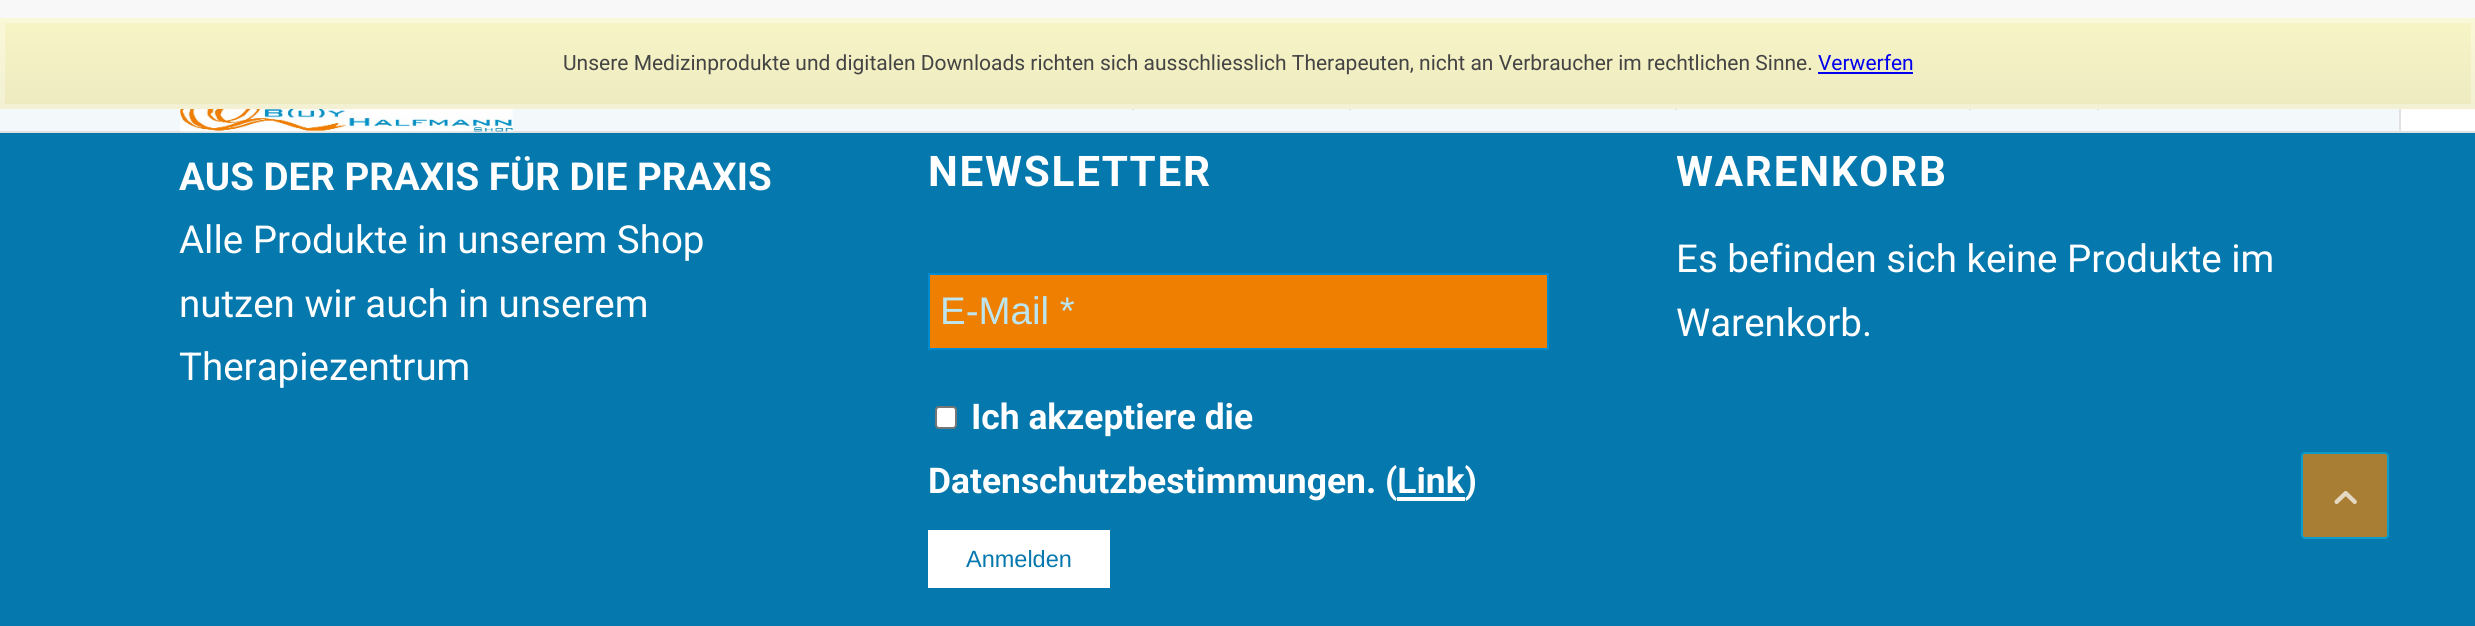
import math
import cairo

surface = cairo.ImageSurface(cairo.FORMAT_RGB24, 2475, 626)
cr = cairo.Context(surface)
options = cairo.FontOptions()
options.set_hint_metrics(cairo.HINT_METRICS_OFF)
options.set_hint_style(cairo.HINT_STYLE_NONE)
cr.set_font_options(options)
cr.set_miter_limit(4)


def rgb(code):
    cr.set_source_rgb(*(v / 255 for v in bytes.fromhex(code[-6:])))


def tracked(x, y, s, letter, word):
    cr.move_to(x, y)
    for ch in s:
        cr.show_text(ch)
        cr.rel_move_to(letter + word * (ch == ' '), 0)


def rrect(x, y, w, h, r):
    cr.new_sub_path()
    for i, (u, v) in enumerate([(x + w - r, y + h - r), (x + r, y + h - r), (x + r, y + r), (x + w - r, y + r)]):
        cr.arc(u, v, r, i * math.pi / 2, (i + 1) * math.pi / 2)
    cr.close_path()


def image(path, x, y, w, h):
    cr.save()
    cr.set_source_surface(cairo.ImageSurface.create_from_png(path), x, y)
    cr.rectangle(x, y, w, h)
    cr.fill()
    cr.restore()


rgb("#0578ad")
cr.paint()
rgb("#e1e1e1")
cr.rectangle(0, 131, 2403, 2)
cr.fill()
rgb("#f3f8fb")
cr.rectangle(0, 109, 2400, 22)
cr.fill()
rrect(2400, 54, 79, 78, 3)
rgb("#e1e1e1")
cr.stroke()
gradient = cairo.LinearGradient(1238, 17, 1238, 109)
gradient.add_color_stop_rgba(0, 0.969, 0.961, 0.776, 1)
gradient.add_color_stop_rgba(1, 0.933, 0.918, 0.757, 1)
cr.set_source(gradient)
cr.rectangle(0, 18, 2475, 91)
cr.fill()
cr.rectangle(2.5, 20.5, 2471, 86)
cr.set_source_rgba(1, 1, 1, 0.3)
cr.set_line_width(5)
cr.stroke()
rgb("#0000ee")
cr.rectangle(1818, 72, 95, 2)
cr.fill()
rgb("#f8f8f8")
cr.rectangle(0, 0, 2475, 18)
cr.fill()
image("img/1.png", 180, 109, 333, 23)
for x, y, w, h, color in [
    (1132, 109, 2, 1, "#e1e1e1"),
    (1349, 109, 2, 1, "#e1e1e1"),
    (1675, 109, 2, 1, "#e1e1e1"),
    (1969, 109, 2, 1, "#e1e1e1"),
    (2097, 109, 2, 1, "#e1e1e1"),
    (2401, 109, 74, 22, "#ffffff"),
]:
    rgb(color)
    cr.rectangle(x, y, w, h)
    cr.fill()
rgb("#ee7f00")
cr.rectangle(929, 274, 619, 75)
cr.fill_preserve()
rgb("#008bd0")
cr.set_line_width(2)
cr.stroke()
rgb("#ffffff")
rrect(936, 407, 20, 21, 3)
cr.fill_preserve()
rgb("#767676")
cr.stroke()
rgb("#ffffff")
cr.rectangle(1397, 497, 68, 4)
cr.fill()
cr.rectangle(928, 530, 182, 58)
cr.fill()
rgb("#a87d34")
rrect(2302, 453, 86, 85, 3)
cr.fill_preserve()
rgb("#0d9cca")
cr.stroke()
image("img/2.png", 2334, 491, 23, 14)
cr.select_font_face("Roboto")
cr.set_font_size(21)
rgb("#444444")
cr.move_to(563, 70)
cr.show_text("Unsere Medizinprodukte und digitalen Downloads richten sich ausschliesslich Therapeuten, nicht an Verbraucher im rechtlichen Sinne.")
rgb("#0000ee")
cr.move_to(1818, 70)
cr.show_text("Verwerfen")
cr.select_font_face("Roboto", cairo.FONT_SLANT_NORMAL, cairo.FONT_WEIGHT_BOLD)
cr.set_font_size(38.5)
rgb("#ffffff")
cr.move_to(179, 190)
cr.show_text("AUS DER PRAXIS FÜR DIE PRAXIS")
cr.select_font_face("Roboto")
for x, y, s in [
    (179, 253, "Alle Produkte in unserem Shop"),
    (179, 317, "nutzen wir auch in unserem"),
    (179, 380, "Therapiezentrum"),
]:
    cr.move_to(x, y)
    cr.show_text(s)
cr.select_font_face("Roboto", cairo.FONT_SLANT_NORMAL, cairo.FONT_WEIGHT_BOLD)
cr.set_font_size(42.25)
tracked(928, 186, "NEWSLETTER", 1.75, 0)
cr.select_font_face("Liberation Sans")
cr.set_font_size(38.5)
rgb("#bde5f0")
cr.move_to(940, 324)
cr.show_text("E-Mail *")
cr.select_font_face("Roboto", cairo.FONT_SLANT_NORMAL, cairo.FONT_WEIGHT_BOLD)
cr.set_font_size(35.4)
rgb("#ffffff")
cr.move_to(971, 429)
cr.show_text("Ich akzeptiere die")
cr.move_to(928, 493)
cr.show_text("Datenschutzbestimmungen. (Link)")
cr.select_font_face("Liberation Sans")
cr.set_font_size(23.5)
rgb("#0578ad")
cr.move_to(966, 567)
cr.show_text("Anmelden")
cr.save()
cr.rectangle(1677, 114, 619, 275)
cr.clip()
cr.select_font_face("Roboto", cairo.FONT_SLANT_NORMAL, cairo.FONT_WEIGHT_BOLD)
cr.set_font_size(42.25)
rgb("#ffffff")
tracked(1676, 186, "WARENKORB", 1.75, 0)
cr.restore()
cr.select_font_face("Roboto")
cr.set_font_size(38.5)
rgb("#ffffff")
cr.move_to(1676, 272)
cr.show_text("Es befinden sich keine Produkte im")
cr.move_to(1676, 336)
cr.show_text("Warenkorb.")
surface.write_to_png("page.png")
